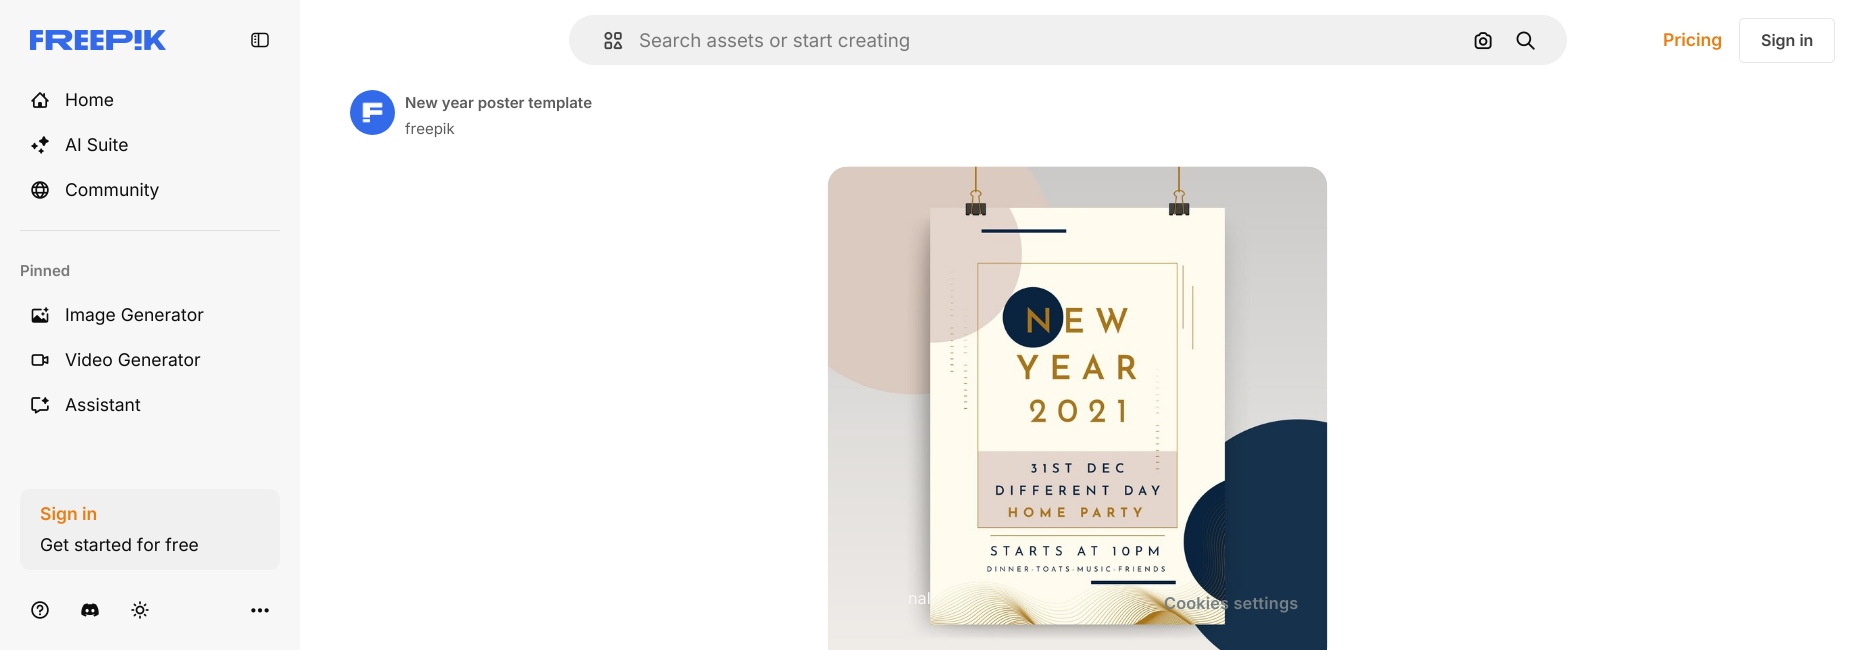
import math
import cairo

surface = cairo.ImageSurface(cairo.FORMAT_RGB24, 1854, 650)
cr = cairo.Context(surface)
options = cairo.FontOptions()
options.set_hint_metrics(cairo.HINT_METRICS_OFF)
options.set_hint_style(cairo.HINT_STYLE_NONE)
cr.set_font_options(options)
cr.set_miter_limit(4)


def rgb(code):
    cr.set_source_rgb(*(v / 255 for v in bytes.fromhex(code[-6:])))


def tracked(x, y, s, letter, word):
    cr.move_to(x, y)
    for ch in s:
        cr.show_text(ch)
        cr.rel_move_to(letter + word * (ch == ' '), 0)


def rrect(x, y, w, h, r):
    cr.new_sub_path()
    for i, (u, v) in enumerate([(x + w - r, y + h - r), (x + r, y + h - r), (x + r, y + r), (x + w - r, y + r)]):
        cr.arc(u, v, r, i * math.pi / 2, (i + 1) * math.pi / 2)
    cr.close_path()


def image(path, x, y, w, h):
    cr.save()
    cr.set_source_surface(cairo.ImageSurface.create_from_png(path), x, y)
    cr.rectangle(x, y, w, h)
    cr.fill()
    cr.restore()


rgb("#ffffff")
cr.paint()
rgb("#f7f7f7")
cr.rectangle(0, 0, 300, 650)
cr.fill()
image("img/1.png", 30, 30, 136, 20)
image("img/2.png", 251, 32, 18, 16)
image("img/3.png", 31, 92, 18, 16)
image("img/4.png", 31, 136, 18, 18)
image("img/5.png", 31, 181, 18, 18)
rgb("#e0e0e0")
cr.rectangle(20, 230, 260, 1)
cr.fill()
image("img/6.png", 31, 307, 18, 16)
image("img/7.png", 31, 354, 18, 12)
image("img/8.png", 31, 397, 18, 17)
rgb("#f0f0f0")
rrect(20, 489, 260, 81, 10)
cr.fill()
image("img/9.png", 31, 601, 18, 18)
image("img/10.png", 81, 603, 18, 14)
image("img/11.png", 131, 601, 18, 18)
image("img/12.png", 251, 608, 18, 5)
rrect(568.5, 14.5, 999, 51, 25.5)
cr.fill_preserve()
rgb("#ffffff")
cr.set_line_width(1)
cr.stroke()
image("img/13.png", 604, 31, 19, 19)
image("img/14.png", 1474, 32, 18, 18)
image("img/15.png", 1516, 31, 19, 19)
rrect(1739.5, 18.5, 95, 44, 4.5)
rgb("#e7e7e7")
cr.stroke()
image("img/16.png", 350, 90, 45, 45)
image("img/17.png", 827, 166, 501, 484)
cr.select_font_face("Inter")
cr.set_font_size(17.5)
rgb("#0d0d0d")
for x, y, s in [
    (65, 106, "Home"),
    (65, 151, "AI Suite"),
    (65, 196, "Community"),
]:
    cr.move_to(x, y)
    cr.show_text(s)
cr.select_font_face("Inter SemiBold")
cr.set_font_size(15)
rgb("#787878")
cr.move_to(20, 276)
cr.show_text("Pinned")
cr.select_font_face("Inter")
cr.set_font_size(17.5)
rgb("#0d0d0d")
for x, y, s in [
    (65, 321, "Image Generator"),
    (65, 366, "Video Generator"),
    (65, 411, "Assistant"),
]:
    cr.move_to(x, y)
    cr.show_text(s)
cr.select_font_face("Inter SemiBold")
rgb("#ea7e11")
cr.move_to(40, 520)
cr.show_text("Sign in")
cr.select_font_face("Inter")
rgb("#0d0d0d")
cr.move_to(40, 551)
cr.show_text("Get started for free")
cr.set_font_size(18.75)
rgb("#787878")
cr.move_to(639, 47)
cr.show_text("Search assets or start creating")
cr.select_font_face("Inter SemiBold")
cr.set_font_size(17.5)
rgb("#ea7e11")
cr.move_to(1663, 46)
cr.show_text("Pricing")
cr.set_font_size(16)
rgb("#424242")
cr.move_to(1761, 46)
cr.show_text("Sign in")
cr.set_font_size(15)
rgb("#5c5c5c")
cr.move_to(405, 108)
cr.show_text("New year poster template")
cr.select_font_face("Inter")
cr.move_to(405, 134)
cr.show_text("freepik")
cr.set_font_size(16.25)
rgb("#f9f8f7")
cr.move_to(908, 604)
cr.show_text("nal")
cr.select_font_face("Inter SemiBold")
rgb("#758184")
tracked(1164, 609, "Cookies settings", 0.2, 0)
surface.write_to_png("page.png")
